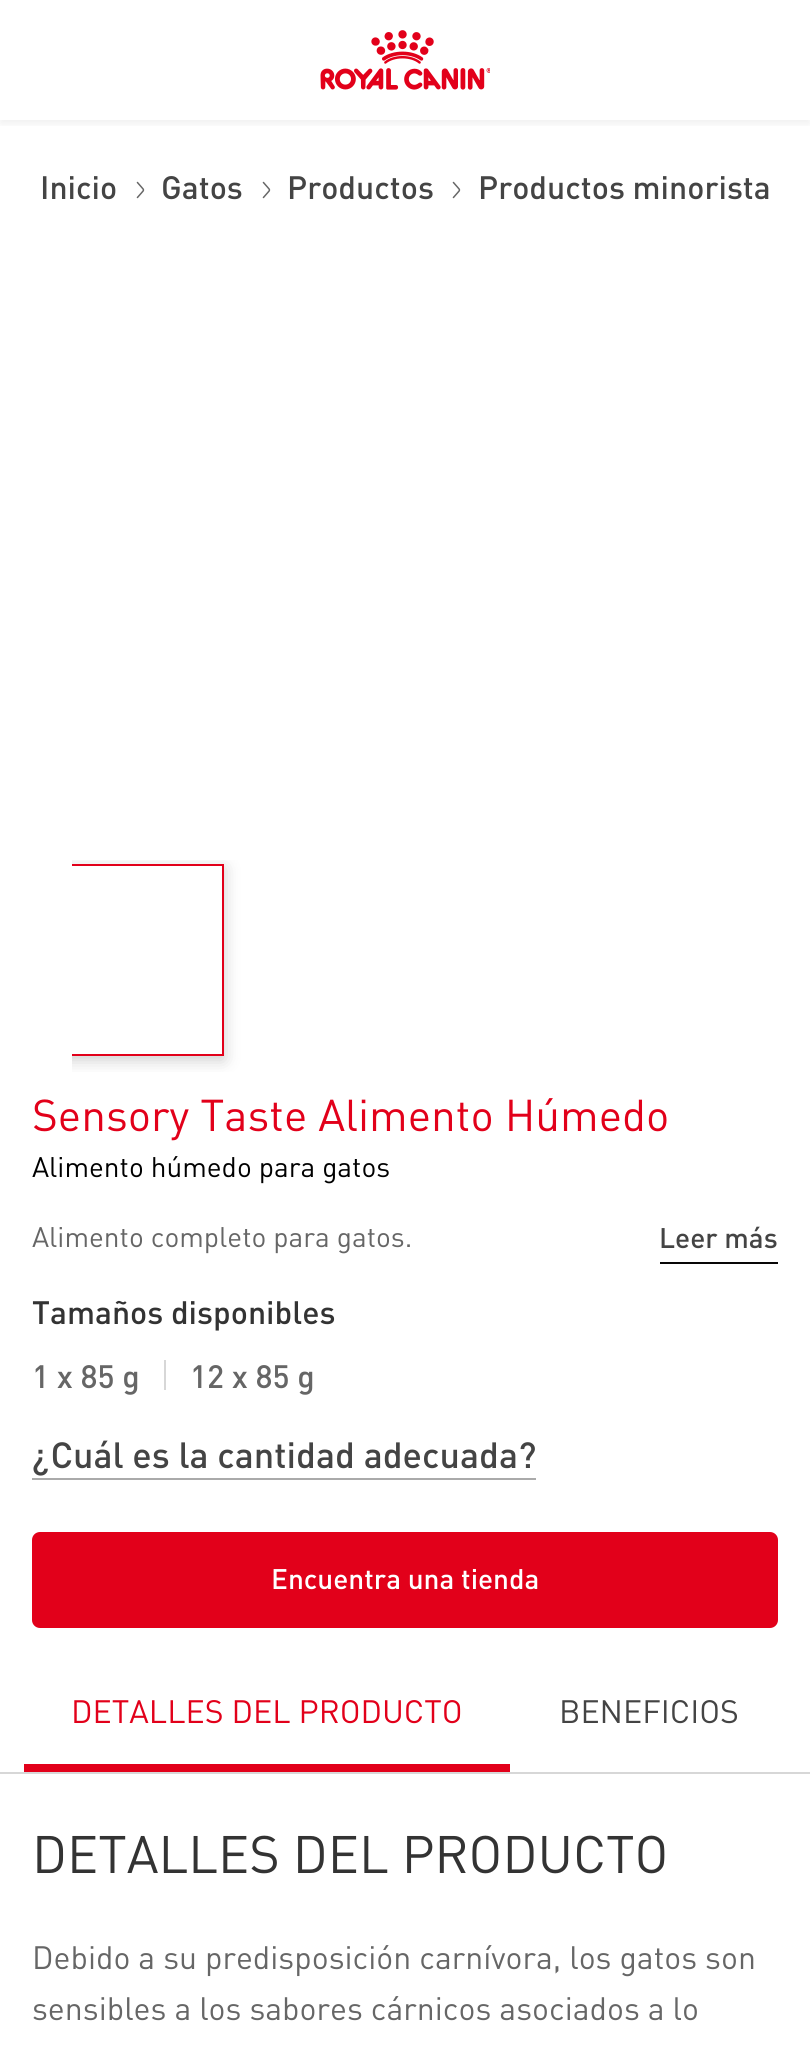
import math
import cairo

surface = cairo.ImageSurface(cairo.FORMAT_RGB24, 810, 2057)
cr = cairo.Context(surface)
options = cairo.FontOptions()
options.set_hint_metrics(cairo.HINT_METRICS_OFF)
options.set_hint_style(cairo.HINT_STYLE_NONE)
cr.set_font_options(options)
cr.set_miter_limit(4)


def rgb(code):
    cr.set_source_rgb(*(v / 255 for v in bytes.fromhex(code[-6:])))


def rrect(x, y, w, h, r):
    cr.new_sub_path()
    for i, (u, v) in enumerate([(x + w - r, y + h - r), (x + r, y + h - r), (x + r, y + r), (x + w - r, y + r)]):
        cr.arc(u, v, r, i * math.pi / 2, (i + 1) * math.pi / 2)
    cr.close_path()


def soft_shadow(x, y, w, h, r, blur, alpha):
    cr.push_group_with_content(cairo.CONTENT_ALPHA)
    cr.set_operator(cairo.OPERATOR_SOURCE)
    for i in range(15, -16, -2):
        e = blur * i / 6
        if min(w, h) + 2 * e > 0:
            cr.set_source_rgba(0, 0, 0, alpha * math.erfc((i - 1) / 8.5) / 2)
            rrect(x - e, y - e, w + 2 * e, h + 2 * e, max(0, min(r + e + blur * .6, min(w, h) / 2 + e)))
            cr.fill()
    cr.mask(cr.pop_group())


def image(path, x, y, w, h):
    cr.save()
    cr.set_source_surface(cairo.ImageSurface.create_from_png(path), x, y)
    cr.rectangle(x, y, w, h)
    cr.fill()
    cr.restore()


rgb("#ffffff")
cr.paint()
cr.save()
cr.rectangle(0, 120, 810, 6)
cr.clip()
rgb("#000000")
soft_shadow(0, 4, 810, 120, 0, 4, 0.06)
cr.restore()
image("img/1.png", 320, 30, 170, 60)
image("img/2.png", 136, 181, 9, 18)
image("img/2.png", 262, 181, 9, 18)
image("img/2.png", 452, 181, 9, 18)
cr.save()
cr.rectangle(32, 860, 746, 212)
cr.clip()
cr.set_fill_rule(cairo.FILL_RULE_EVEN_ODD)
cr.new_path()
cr.move_to(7, 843)
cr.line_to(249, 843)
cr.line_to(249, 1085)
cr.line_to(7, 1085)
cr.close_path()
cr.move_to(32, 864)
cr.line_to(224, 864)
cr.line_to(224, 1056)
cr.line_to(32, 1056)
cr.close_path()
cr.clip()
rgb("#000000")
soft_shadow(32, 868, 192, 192, 0, 8, 0.2)
cr.restore()
cr.rectangle(33, 865, 190, 190)
rgb("#e2001a")
cr.stroke()
for x, y, w, h, color in [
    (32, 860, 40, 212, "#ffffff"),
    (660, 1262, 118, 2, "#080707"),
    (164, 1360, 2, 30, "#d7d7d7"),
    (32, 1478, 504, 2, "#aaaaaa"),
]:
    rgb(color)
    cr.rectangle(x, y, w, h)
    cr.fill()
rgb("#e2001a")
rrect(32, 1532, 746, 96, 8)
cr.fill()
rgb("#d7d7d7")
cr.rectangle(0, 1772, 810, 2)
cr.fill()
rgb("#e2001a")
cr.rectangle(24, 1764, 486, 8)
cr.fill()
cr.select_font_face("DIN Medium")
cr.set_font_size(32)
rgb("#444444")
for x, y, s in [
    (40, 199, "Inicio"),
    (161, 199, "Gatos"),
    (287, 199, "Productos"),
    (478, 199, "Productos minorista"),
]:
    cr.move_to(x, y)
    cr.show_text(s)
cr.select_font_face("DIN")
cr.set_font_size(44)
rgb("#e2001a")
cr.move_to(32, 1131)
cr.show_text("Sensory Taste Alimento Húmedo")
cr.set_font_size(28)
rgb("#000000")
cr.move_to(32, 1177)
cr.show_text("Alimento húmedo para gatos")
rgb("#666666")
cr.move_to(32, 1247)
cr.show_text("Alimento completo para gatos.")
cr.select_font_face("DIN Medium")
rgb("#444444")
cr.move_to(659, 1248)
cr.show_text("Leer más")
cr.set_font_size(32)
rgb("#333333")
cr.move_to(32, 1324)
cr.show_text("Tamaños disponibles")
rgb("#666666")
cr.move_to(32, 1388)
cr.show_text("1 x 85 g")
cr.move_to(190, 1388)
cr.show_text("12 x 85 g")
cr.set_font_size(36)
rgb("#444444")
cr.move_to(32, 1468)
cr.show_text("¿Cuál es la cantidad adecuada?")
cr.set_font_size(28)
rgb("#ffffff")
cr.move_to(271, 1589)
cr.show_text("Encuentra una tienda")
cr.select_font_face("DIN")
cr.set_font_size(32)
rgb("#e2001a")
cr.move_to(71, 1723)
cr.show_text("DETALLES DEL PRODUCTO")
rgb("#444444")
cr.move_to(559, 1723)
cr.show_text("BENEFICIOS")
cr.set_font_size(52)
rgb("#333333")
cr.move_to(32, 1873)
cr.show_text("DETALLES DEL PRODUCTO")
cr.set_font_size(32)
rgb("#666666")
cr.move_to(32, 1969)
cr.show_text("Debido a su predisposición carnívora, los gatos son")
cr.move_to(32, 2020)
cr.show_text("sensibles a los sabores cárnicos asociados a lo")
surface.write_to_png("page.png")
